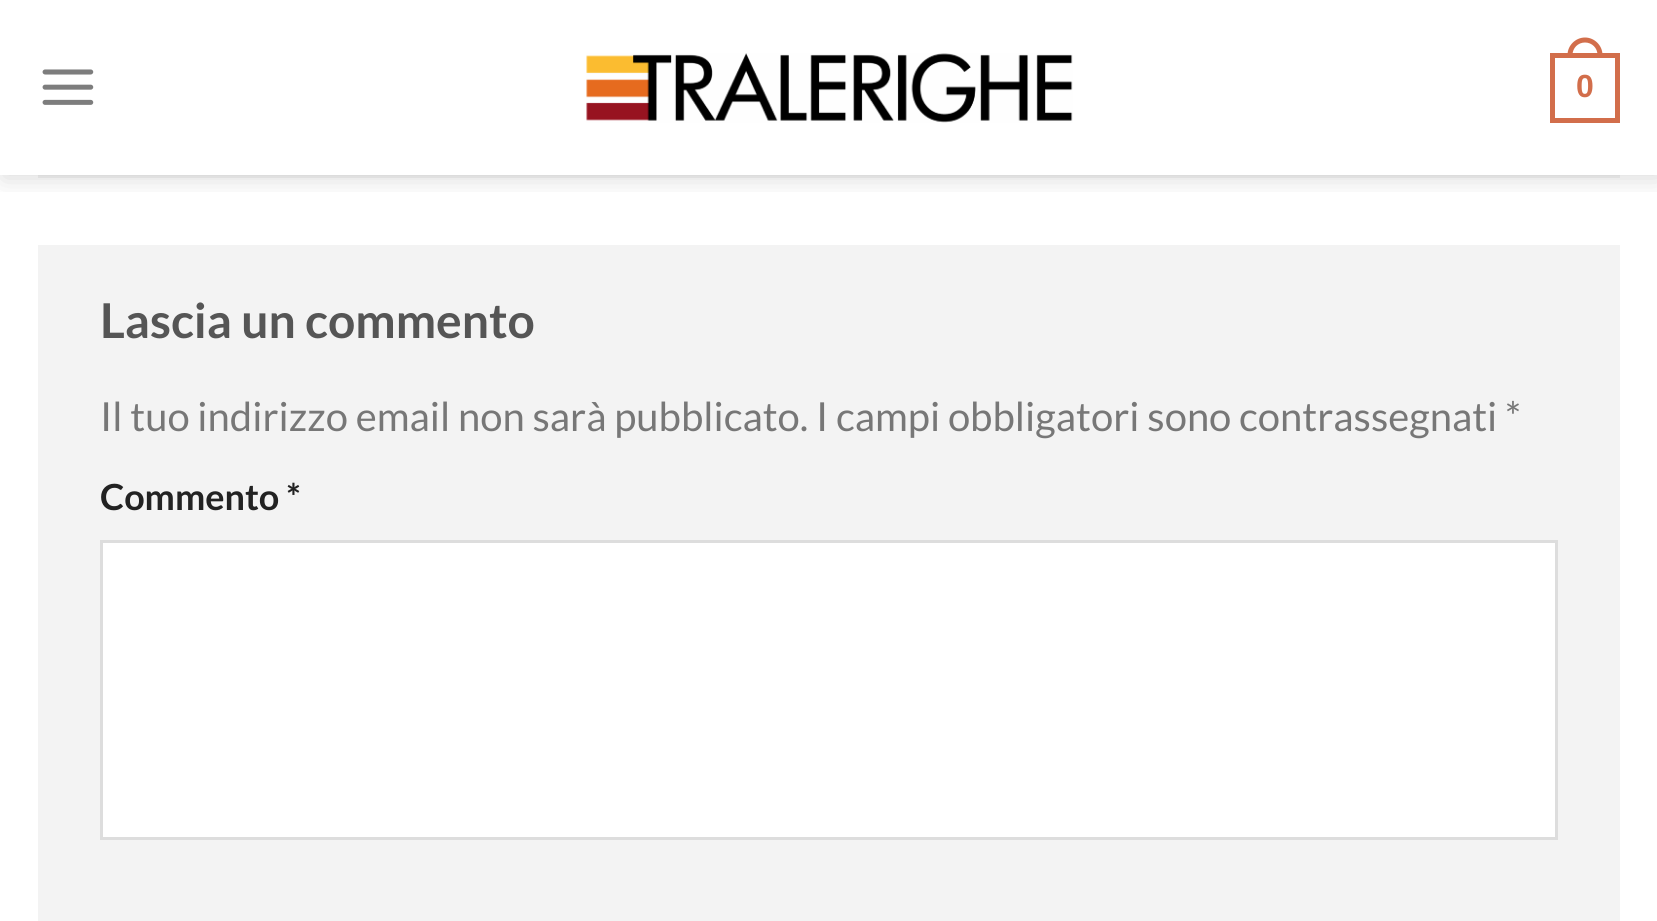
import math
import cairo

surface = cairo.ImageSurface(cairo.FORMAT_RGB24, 1657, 921)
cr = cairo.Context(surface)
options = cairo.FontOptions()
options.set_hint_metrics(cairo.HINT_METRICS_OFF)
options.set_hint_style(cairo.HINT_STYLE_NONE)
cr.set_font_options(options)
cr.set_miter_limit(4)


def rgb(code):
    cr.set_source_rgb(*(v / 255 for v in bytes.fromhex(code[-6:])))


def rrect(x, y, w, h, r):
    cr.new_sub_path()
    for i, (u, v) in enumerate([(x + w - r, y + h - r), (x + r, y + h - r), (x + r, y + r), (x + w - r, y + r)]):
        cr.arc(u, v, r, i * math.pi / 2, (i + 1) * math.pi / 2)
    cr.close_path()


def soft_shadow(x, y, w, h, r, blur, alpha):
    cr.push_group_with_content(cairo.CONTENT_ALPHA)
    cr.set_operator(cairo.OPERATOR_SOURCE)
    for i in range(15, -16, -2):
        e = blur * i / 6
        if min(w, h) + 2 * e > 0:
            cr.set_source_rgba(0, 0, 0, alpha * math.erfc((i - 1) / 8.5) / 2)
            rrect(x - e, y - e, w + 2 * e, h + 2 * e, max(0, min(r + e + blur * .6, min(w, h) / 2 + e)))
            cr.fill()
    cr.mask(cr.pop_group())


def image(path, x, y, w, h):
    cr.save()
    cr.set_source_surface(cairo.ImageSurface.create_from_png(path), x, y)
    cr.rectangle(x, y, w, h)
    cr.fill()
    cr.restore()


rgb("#ffffff")
cr.paint()
cr.save()
cr.rectangle(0, 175, 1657, 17)
cr.clip()
rgb("#000000")
soft_shadow(3, 3, 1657, 175, 0, 12.5, 0.15)
cr.restore()
image("img/1.png", 42, 69, 52, 36)
image("img/2.png", 586, 53, 487, 70)
cr.rectangle(1552.5, 55.5, 65, 65)
rgb("#d26e4b")
cr.set_line_width(5)
cr.stroke()
cr.set_fill_rule(cairo.FILL_RULE_EVEN_ODD)
cr.new_path()
cr.move_to(1585, 37.5)
cr.curve_to(1594.5, 37.5, 1602.5, 45.5, 1602.5, 55)
cr.line_to(1602.5, 57.5)
cr.line_to(1567.5, 57.5)
cr.line_to(1567.5, 55)
cr.curve_to(1567.5, 45.5, 1575.5, 37.5, 1585, 37.5)
cr.close_path()
cr.move_to(1585, 42.5)
cr.curve_to(1592, 42.5, 1597.5, 48, 1597.5, 55)
cr.line_to(1597.5, 57.5)
cr.line_to(1572.5, 57.5)
cr.line_to(1572.5, 55)
cr.curve_to(1572.5, 48, 1578, 42.5, 1585, 42.5)
cr.close_path()
cr.fill()
cr.set_source_rgba(0.467, 0.467, 0.467, 0.1)
cr.rectangle(38, 175, 1582, 3)
cr.fill()
rgb("#f3f3f3")
cr.rectangle(38, 245, 1582, 676)
cr.fill()
rgb("#ffffff")
cr.rectangle(101.5, 541.5, 1455, 297)
cr.fill_preserve()
rgb("#dddddd")
cr.set_line_width(3)
cr.stroke()
cr.select_font_face("Liberation Sans", cairo.FONT_SLANT_NORMAL, cairo.FONT_WEIGHT_BOLD)
cr.set_font_size(32)
rgb("#d26e4b")
cr.move_to(1576, 97)
cr.show_text("0")
cr.select_font_face("Lato", cairo.FONT_SLANT_NORMAL, cairo.FONT_WEIGHT_BOLD)
cr.set_font_size(48)
rgb("#555555")
cr.move_to(100, 338)
cr.show_text("Lascia un commento")
cr.select_font_face("Lato")
cr.set_font_size(40)
rgb("#777777")
cr.move_to(100, 431)
cr.show_text("Il tuo indirizzo email non sarà pubblicato. I campi obbligatori sono contrassegnati *")
cr.select_font_face("Lato", cairo.FONT_SLANT_NORMAL, cairo.FONT_WEIGHT_BOLD)
cr.set_font_size(36)
rgb("#222222")
cr.move_to(100, 510)
cr.show_text("Commento *")
surface.write_to_png("page.png")
